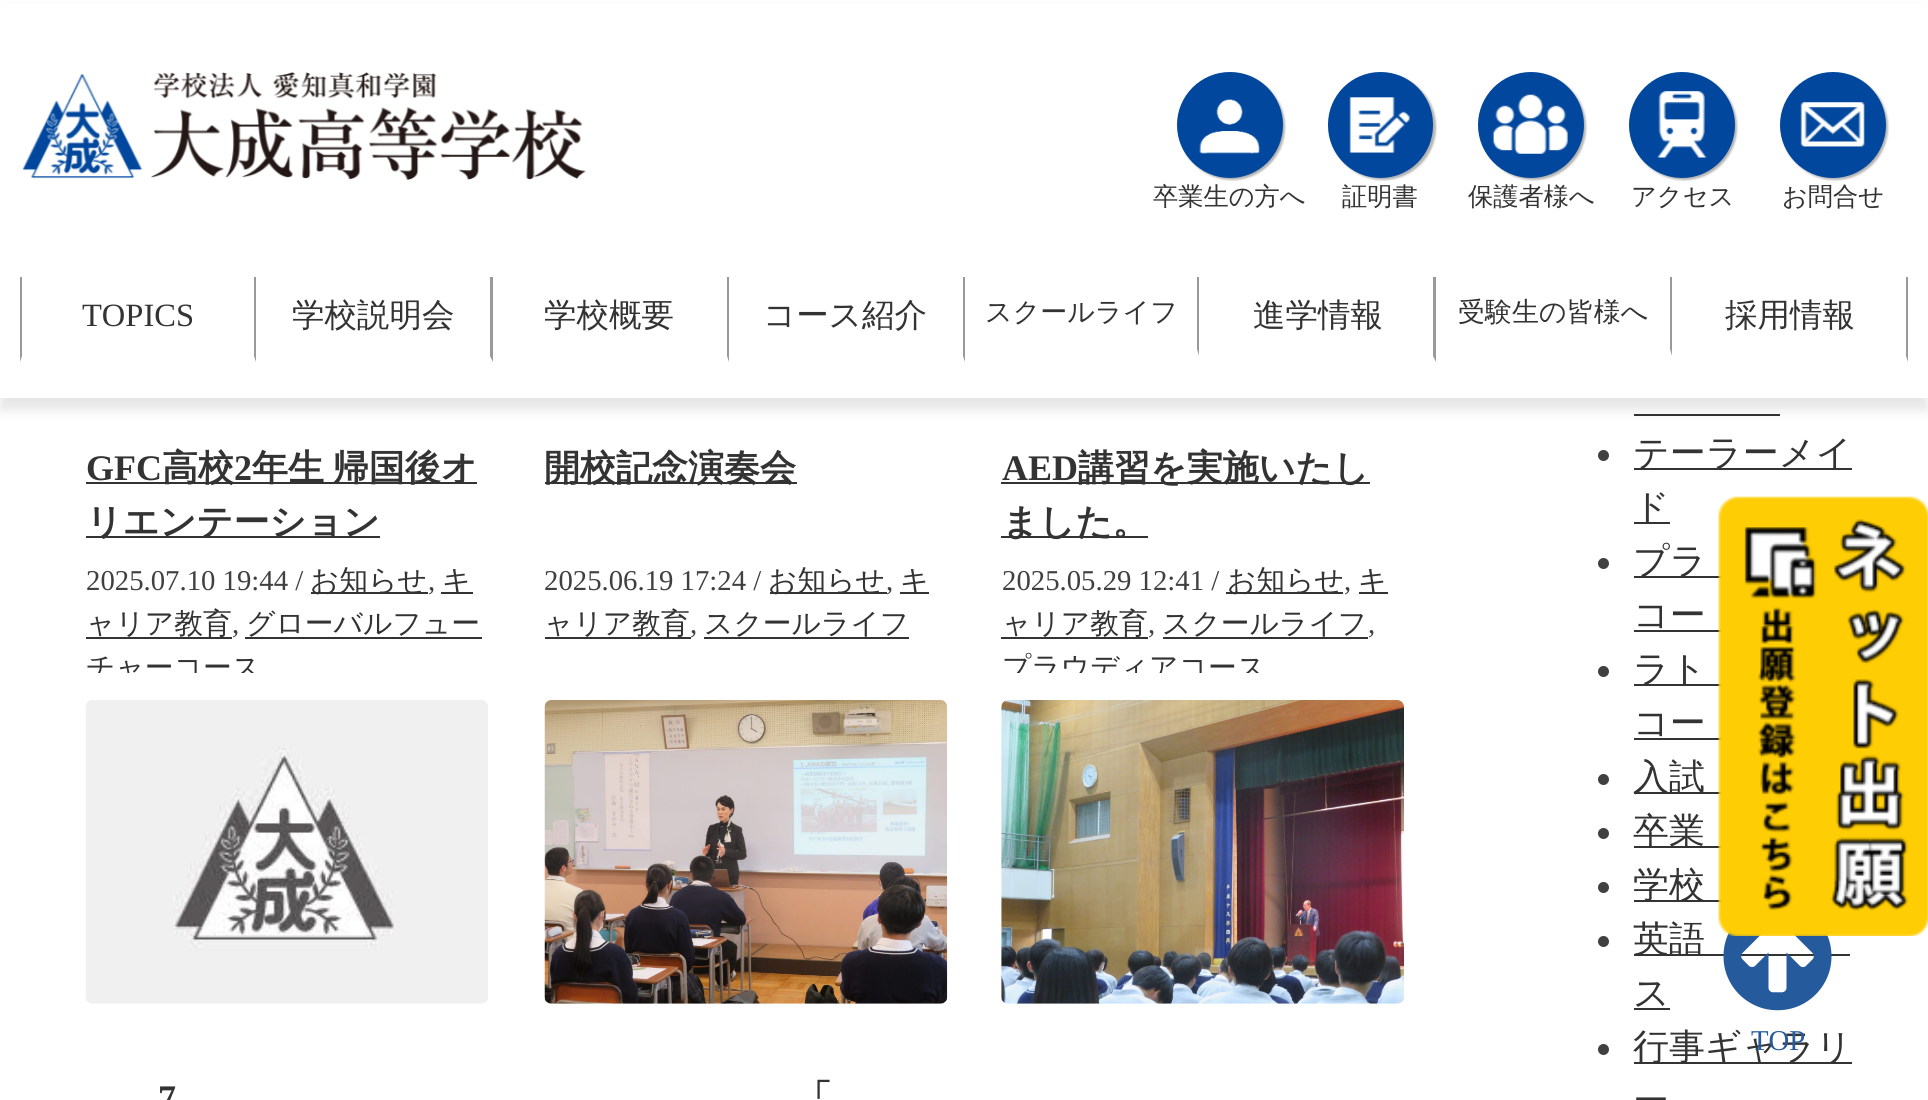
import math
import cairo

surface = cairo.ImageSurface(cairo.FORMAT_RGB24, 1928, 1100)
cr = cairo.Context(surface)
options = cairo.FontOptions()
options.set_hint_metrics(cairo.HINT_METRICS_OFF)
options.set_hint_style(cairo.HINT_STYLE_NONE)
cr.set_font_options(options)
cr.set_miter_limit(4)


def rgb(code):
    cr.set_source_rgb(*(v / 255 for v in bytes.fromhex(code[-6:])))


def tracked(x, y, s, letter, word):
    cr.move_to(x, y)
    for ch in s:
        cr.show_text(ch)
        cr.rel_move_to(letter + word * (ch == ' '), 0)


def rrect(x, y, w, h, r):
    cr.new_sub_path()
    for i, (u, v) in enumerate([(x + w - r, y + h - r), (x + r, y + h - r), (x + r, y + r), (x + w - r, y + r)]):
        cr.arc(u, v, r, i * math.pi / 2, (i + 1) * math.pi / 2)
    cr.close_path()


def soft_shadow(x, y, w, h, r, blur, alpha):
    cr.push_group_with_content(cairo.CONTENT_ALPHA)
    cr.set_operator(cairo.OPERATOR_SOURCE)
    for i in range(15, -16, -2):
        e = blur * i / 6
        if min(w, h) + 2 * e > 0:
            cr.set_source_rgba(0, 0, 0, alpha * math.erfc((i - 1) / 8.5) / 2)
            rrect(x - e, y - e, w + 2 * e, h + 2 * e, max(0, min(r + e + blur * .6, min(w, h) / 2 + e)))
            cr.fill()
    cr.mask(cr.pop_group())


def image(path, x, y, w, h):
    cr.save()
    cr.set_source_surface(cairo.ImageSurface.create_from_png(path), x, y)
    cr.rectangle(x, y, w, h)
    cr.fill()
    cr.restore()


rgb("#ffffff")
cr.paint()
rgb("#333333")
cr.rectangle(1634, 414, 146, 2)
cr.fill()
rgb("#000000")
soft_shadow(0, 11, 1928, 399, 0, 5.5, 0.1)
rgb("#ffffff")
cr.rectangle(0, 4, 1928, 394)
cr.fill()
image("img/1.png", 22, 72, 564, 108)
rgb("#000000")
soft_shadow(1179, 74, 106, 106, 53, 1, 0.3)
rgb("#00479d")
cr.arc(1230, 125, 53, 0, 2 * math.pi)
cr.fill()
image("img/2.png", 1199, 99, 61, 55)
rgb("#000000")
soft_shadow(1330, 74, 106, 106, 53, 1, 0.3)
rgb("#00479d")
rrect(1328, 72, 105, 106, 52.5)
cr.fill()
image("img/3.png", 1349, 97, 61, 56)
rgb("#000000")
soft_shadow(1481, 74, 105, 106, 52.5, 1, 0.3)
rgb("#00479d")
cr.arc(1531, 125, 53, 0, 2 * math.pi)
cr.fill()
image("img/4.png", 1492, 94, 76, 60)
rgb("#000000")
soft_shadow(1631, 74, 106, 106, 53, 1, 0.3)
rgb("#00479d")
cr.arc(1682, 125, 53, 0, 2 * math.pi)
cr.fill()
image("img/5.png", 1657, 91, 50, 67)
rgb("#000000")
soft_shadow(1782, 74, 106, 106, 53, 1, 0.3)
rgb("#00479d")
cr.arc(1833, 125, 53, 0, 2 * math.pi)
cr.fill()
image("img/6.png", 1800, 102, 65, 45)
rgb("#999999")
cr.new_path()
cr.move_to(256, 277)
cr.line_to(256, 362)
cr.line_to(254, 356)
cr.line_to(254, 277)
cr.close_path()
cr.fill()
cr.new_path()
cr.move_to(20, 362)
cr.line_to(20, 277)
cr.line_to(22, 277)
cr.line_to(22, 356)
cr.close_path()
cr.fill()
cr.new_path()
cr.move_to(493, 277)
cr.line_to(493, 362)
cr.line_to(490, 356)
cr.line_to(490, 277)
cr.close_path()
cr.fill()
cr.new_path()
cr.move_to(729, 277)
cr.line_to(729, 362)
cr.line_to(727, 356)
cr.line_to(727, 277)
cr.close_path()
cr.fill()
cr.new_path()
cr.move_to(965, 277)
cr.line_to(965, 362)
cr.line_to(963, 356)
cr.line_to(963, 277)
cr.close_path()
cr.fill()
cr.new_path()
cr.move_to(1199, 277)
cr.line_to(1199, 356)
cr.line_to(1197, 349)
cr.line_to(1197, 277)
cr.close_path()
cr.fill()
cr.new_path()
cr.move_to(1436, 277)
cr.line_to(1436, 362)
cr.line_to(1433, 356)
cr.line_to(1433, 277)
cr.close_path()
cr.fill()
cr.new_path()
cr.move_to(1672, 277)
cr.line_to(1672, 356)
cr.line_to(1670, 349)
cr.line_to(1670, 277)
cr.close_path()
cr.fill()
cr.new_path()
cr.move_to(1908, 277)
cr.line_to(1908, 362)
cr.line_to(1906, 356)
cr.line_to(1906, 277)
cr.close_path()
cr.fill()
for x, y, w, h, color in [
    (86, 482, 391, 2, "#333333"),
    (86, 536, 294, 2, "#333333"),
    (311, 592, 117, 2, "#333333"),
    (441, 592, 32, 2, "#333333"),
    (86, 637, 146, 2, "#333333"),
    (245, 637, 237, 2, "#333333"),
    (545, 482, 252, 2, "#333333"),
    (770, 592, 117, 2, "#333333"),
    (900, 592, 29, 2, "#333333"),
    (545, 637, 146, 2, "#333333"),
    (704, 637, 205, 2, "#333333"),
    (1001, 482, 369, 2, "#333333"),
    (1001, 536, 147, 2, "#333333"),
    (1226, 592, 117, 2, "#333333"),
    (1359, 592, 29, 2, "#333333"),
    (1001, 637, 147, 2, "#333333"),
    (1163, 637, 205, 2, "#333333"),
]:
    rgb(color)
    cr.rectangle(x, y, w, h)
    cr.fill()
image("img/7.png", 1001, 700, 403, 304)
image("img/8.png", 85, 700, 403, 304)
image("img/9.png", 544, 700, 404, 304)
rgb("#404040")
cr.arc(1603.5, 455.5, 5.5, 0, 2 * math.pi)
cr.fill()
rgb("#333333")
cr.rectangle(1634, 468, 218, 2)
cr.fill()
cr.rectangle(1634, 522, 36, 2)
cr.fill()
rgb("#404040")
cr.arc(1603.5, 563.5, 5.5, 0, 2 * math.pi)
cr.fill()
rgb("#333333")
cr.rectangle(1634, 576, 88, 2)
cr.fill()
cr.rectangle(1634, 630, 88, 2)
cr.fill()
rgb("#404040")
cr.arc(1603.5, 671.5, 5.5, 0, 2 * math.pi)
cr.fill()
rgb("#333333")
cr.rectangle(1634, 684, 88, 2)
cr.fill()
cr.rectangle(1634, 738, 88, 2)
cr.fill()
rgb("#404040")
cr.arc(1603.5, 779.5, 5.5, 0, 2 * math.pi)
cr.fill()
rgb("#333333")
cr.rectangle(1634, 792, 88, 2)
cr.fill()
rgb("#404040")
cr.arc(1603.5, 833.5, 5.5, 0, 2 * math.pi)
cr.fill()
rgb("#333333")
cr.rectangle(1634, 846, 88, 2)
cr.fill()
rgb("#404040")
cr.arc(1603.5, 887.5, 5.5, 0, 2 * math.pi)
cr.fill()
rgb("#333333")
cr.rectangle(1634, 900, 88, 2)
cr.fill()
rgb("#404040")
cr.arc(1603.5, 941.5, 5.5, 0, 2 * math.pi)
cr.fill()
rgb("#333333")
cr.rectangle(1634, 954, 216, 2)
cr.fill()
cr.rectangle(1634, 1008, 36, 2)
cr.fill()
rgb("#404040")
cr.arc(1603.5, 1049.5, 5.5, 0, 2 * math.pi)
cr.fill()
rgb("#333333")
cr.rectangle(1634, 1062, 218, 2)
cr.fill()
image("img/10.png", 1723, 930, 109, 81)
image("img/11.png", 1718, 496, 210, 440)
cr.select_font_face("WenQuanYi Zen Hei Medium")
cr.set_font_size(25.25)
for x, y, s in [
    (1153, 205, "卒業生の方へ"),
    (1342, 205, "証明書"),
    (1468, 205, "保護者様へ"),
    (1631, 205, "アクセス"),
    (1782, 205, "お問合せ"),
]:
    cr.move_to(x, y)
    cr.show_text(s)
cr.select_font_face("Liberation Serif")
cr.set_font_size(32.5)
cr.move_to(82, 326)
cr.show_text("TOPICS")
cr.select_font_face("WenQuanYi Zen Hei Medium")
for x, y, s in [
    (292, 326, "学校説明会"),
    (544, 326, "学校概要"),
    (763, 326, "コース紹介"),
]:
    cr.move_to(x, y)
    cr.show_text(s)
cr.set_font_size(27)
cr.move_to(985, 321)
cr.show_text("スクールライフ")
cr.set_font_size(32.5)
cr.move_to(1253, 326)
cr.show_text("進学情報")
cr.set_font_size(27)
cr.move_to(1458, 321)
cr.show_text("受験生の皆様へ")
cr.set_font_size(32.5)
cr.move_to(1725, 326)
cr.show_text("採用情報")
cr.select_font_face("Liberation Serif", cairo.FONT_SLANT_NORMAL, cairo.FONT_WEIGHT_BOLD)
cr.set_font_size(36)
cr.move_to(86, 480)
cr.show_text("GFC")
cr.select_font_face("WenQuanYi Zen Hei", cairo.FONT_SLANT_NORMAL, cairo.FONT_WEIGHT_BOLD)
cr.move_to(162, 480)
cr.show_text("高校")
cr.select_font_face("Liberation Serif", cairo.FONT_SLANT_NORMAL, cairo.FONT_WEIGHT_BOLD)
cr.move_to(234, 480)
cr.show_text("2")
cr.select_font_face("WenQuanYi Zen Hei", cairo.FONT_SLANT_NORMAL, cairo.FONT_WEIGHT_BOLD)
tracked(252, 480, "年生 帰国後オ", 0, -2)
cr.move_to(86, 534)
cr.show_text("リエンテーション")
cr.select_font_face("Liberation Serif")
cr.set_font_size(28.75)
rgb("#404040")
cr.move_to(86, 590)
cr.show_text("2025.07.10 19:44 /")
cr.select_font_face("WenQuanYi Zen Hei Medium")
rgb("#333333")
cr.move_to(310, 590)
cr.show_text("お知らせ")
cr.select_font_face("Liberation Serif")
rgb("#404040")
cr.move_to(428, 590)
cr.show_text(",")
cr.select_font_face("WenQuanYi Zen Hei Medium")
rgb("#333333")
cr.move_to(442, 590)
cr.show_text("キ")
cr.move_to(86, 633)
cr.show_text("ャリア教育")
cr.select_font_face("Liberation Serif")
rgb("#404040")
cr.move_to(232, 633)
cr.show_text(",")
cr.select_font_face("WenQuanYi Zen Hei Medium")
rgb("#333333")
cr.move_to(246, 633)
cr.show_text("グローバルフュー")
cr.save()
cr.rectangle(59, 43, 456, 630)
cr.clip()
cr.move_to(86, 677)
cr.show_text("チャーコース")
cr.restore()
cr.select_font_face("WenQuanYi Zen Hei", cairo.FONT_SLANT_NORMAL, cairo.FONT_WEIGHT_BOLD)
cr.set_font_size(36)
cr.move_to(544, 480)
cr.show_text("開校記念演奏会")
cr.select_font_face("Liberation Serif")
cr.set_font_size(28.75)
rgb("#404040")
cr.move_to(544, 590)
cr.show_text("2025.06.19 17:24 /")
cr.select_font_face("WenQuanYi Zen Hei Medium")
rgb("#333333")
cr.move_to(768, 590)
cr.show_text("お知らせ")
cr.select_font_face("Liberation Serif")
rgb("#404040")
cr.move_to(886, 590)
cr.show_text(",")
cr.select_font_face("WenQuanYi Zen Hei Medium")
rgb("#333333")
cr.move_to(900, 590)
cr.show_text("キ")
cr.move_to(544, 633)
cr.show_text("ャリア教育")
cr.select_font_face("Liberation Serif")
rgb("#404040")
cr.move_to(690, 633)
cr.show_text(",")
cr.select_font_face("WenQuanYi Zen Hei Medium")
rgb("#333333")
cr.move_to(704, 633)
cr.show_text("スクールライフ")
cr.select_font_face("Liberation Serif", cairo.FONT_SLANT_NORMAL, cairo.FONT_WEIGHT_BOLD)
cr.set_font_size(36)
cr.move_to(1002, 480)
cr.show_text("AED")
cr.select_font_face("WenQuanYi Zen Hei", cairo.FONT_SLANT_NORMAL, cairo.FONT_WEIGHT_BOLD)
cr.move_to(1078, 480)
cr.show_text("講習を実施いたし")
cr.move_to(1002, 534)
cr.show_text("ました。")
cr.select_font_face("Liberation Serif")
cr.set_font_size(28.75)
rgb("#404040")
cr.move_to(1002, 590)
cr.show_text("2025.05.29 12:41 /")
cr.select_font_face("WenQuanYi Zen Hei Medium")
rgb("#333333")
cr.move_to(1227, 590)
cr.show_text("お知らせ")
cr.select_font_face("Liberation Serif")
rgb("#404040")
cr.move_to(1344, 590)
cr.show_text(",")
cr.select_font_face("WenQuanYi Zen Hei Medium")
rgb("#333333")
cr.move_to(1358, 590)
cr.show_text("キ")
cr.move_to(1002, 633)
cr.show_text("ャリア教育")
cr.select_font_face("Liberation Serif")
rgb("#404040")
cr.move_to(1148, 633)
cr.show_text(",")
cr.select_font_face("WenQuanYi Zen Hei Medium")
rgb("#333333")
cr.move_to(1162, 633)
cr.show_text("スクールライフ")
cr.select_font_face("Liberation Serif")
rgb("#404040")
cr.move_to(1368, 633)
cr.show_text(",")
cr.save()
cr.rectangle(974, 43, 459, 630)
cr.clip()
cr.select_font_face("WenQuanYi Zen Hei Medium")
rgb("#333333")
cr.move_to(1002, 677)
cr.show_text("プラウディアコース")
cr.restore()
cr.select_font_face("Liberation Serif", cairo.FONT_SLANT_NORMAL, cairo.FONT_WEIGHT_BOLD)
cr.set_font_size(36)
rgb("#333333")
cr.move_to(158, 1110)
cr.show_text("7")
cr.select_font_face("WenQuanYi Zen Hei", cairo.FONT_SLANT_NORMAL, cairo.FONT_WEIGHT_BOLD)
cr.move_to(796, 1110)
cr.show_text("「")
cr.select_font_face("WenQuanYi Zen Hei Medium")
for x, y, s in [
    (1633, 465, "テーラーメイ"),
    (1633, 519, "ド"),
    (1633, 573, "プラ"),
    (1633, 627, "コー"),
    (1633, 681, "ラト"),
    (1633, 735, "コー"),
    (1633, 789, "入試"),
    (1633, 843, "卒業"),
    (1633, 897, "学校"),
    (1633, 951, "英語"),
    (1633, 1005, "ス"),
    (1633, 1059, "行事ギャラリ"),
    (1633, 1113, "ー"),
]:
    cr.move_to(x, y)
    cr.show_text(s)
cr.select_font_face("Liberation Serif")
cr.set_font_size(28.75)
rgb("#255b9d")
cr.move_to(1751, 1050)
cr.show_text("TOP")
surface.write_to_png("page.png")
